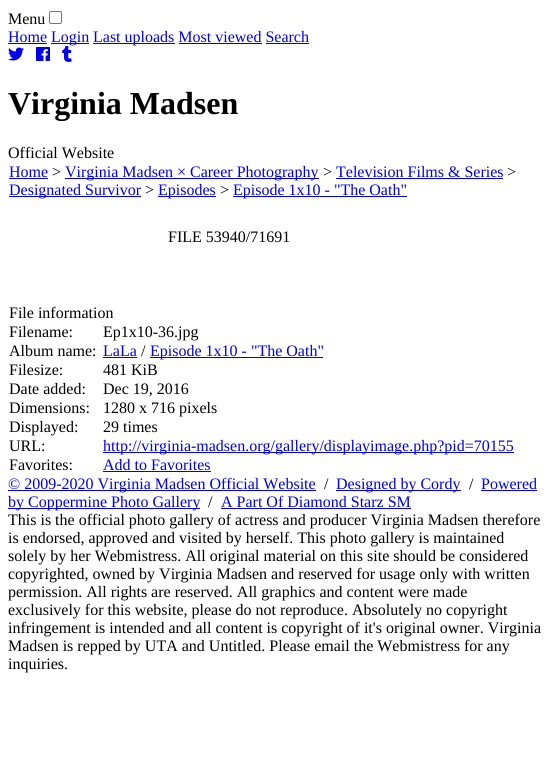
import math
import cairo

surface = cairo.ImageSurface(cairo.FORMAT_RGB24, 550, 757)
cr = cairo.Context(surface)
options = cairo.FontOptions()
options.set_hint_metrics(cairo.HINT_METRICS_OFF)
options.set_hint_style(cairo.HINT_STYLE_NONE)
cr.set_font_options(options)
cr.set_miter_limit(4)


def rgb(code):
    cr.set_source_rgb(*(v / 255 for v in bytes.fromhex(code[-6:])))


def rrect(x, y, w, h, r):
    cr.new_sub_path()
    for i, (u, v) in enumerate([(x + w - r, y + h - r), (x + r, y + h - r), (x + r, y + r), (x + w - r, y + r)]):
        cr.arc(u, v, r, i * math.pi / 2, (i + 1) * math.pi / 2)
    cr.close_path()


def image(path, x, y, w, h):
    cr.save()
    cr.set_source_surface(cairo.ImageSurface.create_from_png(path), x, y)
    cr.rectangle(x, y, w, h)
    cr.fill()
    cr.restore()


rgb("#ffffff")
cr.paint()
rrect(49.5, 11.5, 12, 12, 1.5)
rgb("#767676")
cr.set_line_width(1)
cr.stroke()
for x, y, w, h, color in [
    (8, 43, 39, 1, "#0000ee"),
    (51, 43, 38, 1, "#0000ee"),
    (93, 43, 82, 1, "#0000ee"),
    (179, 43, 83, 1, "#0000ee"),
    (266, 43, 43, 1, "#0000ee"),
]:
    rgb(color)
    cr.rectangle(x, y, w, h)
    cr.fill()
image("img/1.png", 8, 47, 16, 14)
image("img/2.png", 36, 47, 14, 14)
image("img/3.png", 62, 46, 10, 16)
for x, y, w, h, color in [
    (9, 178, 39, 1, "#0000ee"),
    (65, 178, 254, 1, "#0000ee"),
    (336, 178, 167, 1, "#0000ee"),
    (9, 196, 132, 1, "#0000ee"),
    (158, 196, 58, 1, "#0000ee"),
    (233, 196, 174, 1, "#0000ee"),
    (103, 357, 34, 1, "#0000ee"),
    (150, 357, 173, 1, "#0000ee"),
    (103, 452, 411, 1, "#0000ee"),
    (103, 471, 108, 1, "#0000ee"),
    (8, 490, 308, 1, "#0000ee"),
    (336, 490, 125, 1, "#0000ee"),
    (481, 490, 56, 1, "#0000ee"),
    (8, 508, 192, 1, "#0000ee"),
    (221, 508, 190, 1, "#0000ee"),
]:
    rgb(color)
    cr.rectangle(x, y, w, h)
    cr.fill()
cr.select_font_face("Liberation Serif")
cr.set_font_size(16)
rgb("#000000")
cr.move_to(8, 24)
cr.show_text("Menu")
rgb("#0000ee")
for x, y, s in [
    (8, 42, "Home"),
    (51, 42, "Login"),
    (93, 42, "Last uploads Most viewed Search"),
]:
    cr.move_to(x, y)
    cr.show_text(s)
cr.select_font_face("Liberation Serif", cairo.FONT_SLANT_NORMAL, cairo.FONT_WEIGHT_BOLD)
cr.set_font_size(32)
rgb("#000000")
cr.move_to(8, 114)
cr.show_text("Virginia Madsen")
cr.select_font_face("Liberation Serif")
cr.set_font_size(16)
cr.move_to(8, 158)
cr.show_text("Official Website")
rgb("#0000ee")
cr.move_to(9, 177)
cr.show_text("Home")
rgb("#000000")
cr.move_to(52, 177)
cr.show_text(">")
rgb("#0000ee")
cr.move_to(65, 177)
cr.show_text("Virginia Madsen × Career Photography")
rgb("#000000")
cr.move_to(323, 177)
cr.show_text(">")
rgb("#0000ee")
cr.move_to(336, 177)
cr.show_text("Television Films & Series")
rgb("#000000")
cr.move_to(507, 177)
cr.show_text(">")
rgb("#0000ee")
cr.move_to(9, 195)
cr.show_text("Designated Survivor")
rgb("#000000")
cr.move_to(145, 195)
cr.show_text(">")
rgb("#0000ee")
cr.move_to(158, 195)
cr.show_text("Episodes")
rgb("#000000")
cr.move_to(220, 195)
cr.show_text(">")
rgb("#0000ee")
cr.move_to(233, 195)
cr.show_text("Episode 1x10 - \"The Oath\"")
rgb("#000000")
for x, y, s in [
    (168, 242, "FILE 53940/71691"),
    (9, 318, "File information"),
    (9, 337, "Filename:"),
    (103, 337, "Ep1x10-36.jpg"),
    (9, 356, "Album name:"),
]:
    cr.move_to(x, y)
    cr.show_text(s)
rgb("#0000ee")
cr.move_to(103, 356)
cr.show_text("LaLa")
rgb("#000000")
cr.move_to(141, 356)
cr.show_text("/")
rgb("#0000ee")
cr.move_to(150, 356)
cr.show_text("Episode 1x10 - \"The Oath\"")
rgb("#000000")
for x, y, s in [
    (9, 375, "Filesize:"),
    (103, 375, "481 KiB"),
    (9, 394, "Date added:"),
    (103, 394, "Dec 19, 2016"),
    (9, 413, "Dimensions:"),
    (103, 413, "1280 x 716 pixels"),
    (9, 432, "Displayed:"),
    (103, 432, "29 times"),
    (9, 451, "URL:"),
]:
    cr.move_to(x, y)
    cr.show_text(s)
rgb("#0000ee")
cr.move_to(103, 451)
cr.show_text("http://virginia-madsen.org/gallery/displayimage.php?pid=70155")
rgb("#000000")
cr.move_to(9, 470)
cr.show_text("Favorites:")
rgb("#0000ee")
cr.move_to(103, 470)
cr.show_text("Add to Favorites")
cr.move_to(8, 489)
cr.show_text("© 2009-2020 Virginia Madsen Official Website")
rgb("#000000")
cr.move_to(324, 489)
cr.show_text("/")
rgb("#0000ee")
cr.move_to(336, 489)
cr.show_text("Designed by Cordy")
rgb("#000000")
cr.move_to(469, 489)
cr.show_text("/")
rgb("#0000ee")
cr.move_to(481, 489)
cr.show_text("Powered")
cr.move_to(8, 507)
cr.show_text("by Coppermine Photo Gallery")
rgb("#000000")
cr.move_to(208, 507)
cr.show_text("/")
rgb("#0000ee")
cr.move_to(221, 507)
cr.show_text("A Part Of Diamond Starz SM")
rgb("#000000")
for x, y, s in [
    (8, 525, "This is the official photo gallery of actress and producer Virginia Madsen therefore"),
    (8, 543, "is endorsed, approved and visited by herself. This photo gallery is maintained"),
    (8, 561, "solely by her Webmistress. All original material on this site should be considered"),
    (8, 579, "copyrighted, owned by Virginia Madsen and reserved for usage only with written"),
    (8, 597, "permission. All rights are reserved. All graphics and content were made"),
    (8, 615, "exclusively for this website, please do not reproduce. Absolutely no copyright"),
    (8, 633, "infringement is intended and all content is copyright of it's original owner. Virginia"),
    (8, 651, "Madsen is repped by UTA and Untitled. Please email the Webmistress for any"),
    (8, 669, "inquiries."),
]:
    cr.move_to(x, y)
    cr.show_text(s)
surface.write_to_png("page.png")
